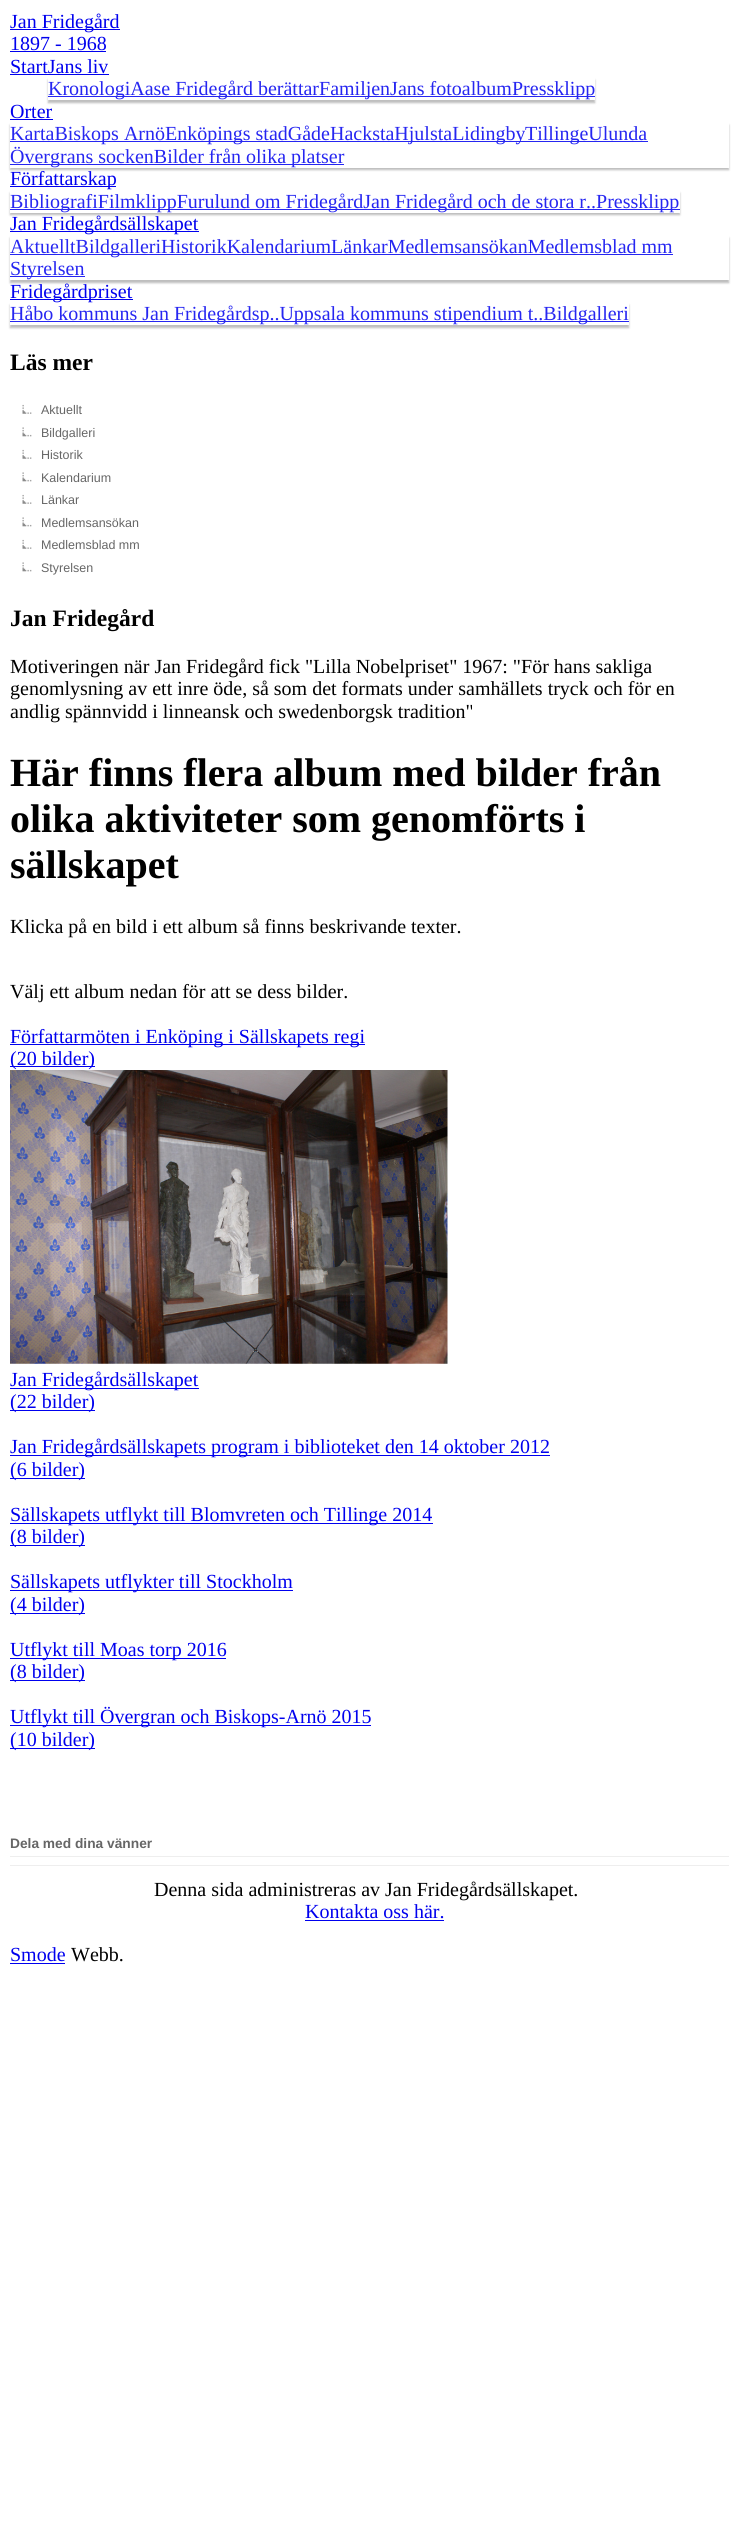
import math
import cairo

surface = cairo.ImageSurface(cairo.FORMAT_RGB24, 738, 2522)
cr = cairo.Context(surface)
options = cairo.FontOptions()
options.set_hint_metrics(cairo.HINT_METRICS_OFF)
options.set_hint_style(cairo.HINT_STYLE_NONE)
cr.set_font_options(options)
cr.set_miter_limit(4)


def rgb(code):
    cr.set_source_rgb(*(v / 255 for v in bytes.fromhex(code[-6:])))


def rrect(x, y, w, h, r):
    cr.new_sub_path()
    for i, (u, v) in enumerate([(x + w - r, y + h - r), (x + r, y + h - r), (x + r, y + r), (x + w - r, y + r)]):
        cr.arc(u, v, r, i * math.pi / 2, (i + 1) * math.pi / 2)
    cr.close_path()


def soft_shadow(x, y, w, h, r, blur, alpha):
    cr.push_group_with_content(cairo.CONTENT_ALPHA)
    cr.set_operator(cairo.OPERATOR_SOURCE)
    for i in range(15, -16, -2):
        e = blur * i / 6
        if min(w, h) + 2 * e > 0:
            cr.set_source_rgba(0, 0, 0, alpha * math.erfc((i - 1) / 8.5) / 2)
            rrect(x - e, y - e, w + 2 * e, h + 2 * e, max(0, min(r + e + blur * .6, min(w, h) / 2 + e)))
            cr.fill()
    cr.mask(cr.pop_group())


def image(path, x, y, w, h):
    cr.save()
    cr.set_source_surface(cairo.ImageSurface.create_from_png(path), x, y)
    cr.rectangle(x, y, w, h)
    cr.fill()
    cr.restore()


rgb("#ffffff")
cr.paint()
for x, y, w, h, color in [
    (10, 29, 110, 1, "#0000ee"),
    (10, 51, 96, 1, "#0000ee"),
    (10, 74, 99, 1, "#0000ee"),
]:
    rgb(color)
    cr.rectangle(x, y, w, h)
    cr.fill()
cr.save()
cr.set_fill_rule(cairo.FILL_RULE_EVEN_ODD)
cr.new_path()
cr.move_to(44, 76)
cr.line_to(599, 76)
cr.line_to(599, 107)
cr.line_to(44, 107)
cr.close_path()
cr.move_to(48, 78)
cr.line_to(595, 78)
cr.line_to(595, 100)
cr.line_to(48, 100)
cr.close_path()
cr.clip()
rgb("#262626")
soft_shadow(48, 80, 547, 23, 0, 1, 0.3)
cr.restore()
for x, y, w, h, color in [
    (48, 96, 463, 1, "#2626f1"),
    (511, 96, 84, 1, "#2626f1"),
    (10, 119, 43, 1, "#0000ee"),
]:
    rgb(color)
    cr.rectangle(x, y, w, h)
    cr.fill()
cr.save()
cr.set_fill_rule(cairo.FILL_RULE_EVEN_ODD)
cr.new_path()
cr.move_to(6, 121)
cr.line_to(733, 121)
cr.line_to(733, 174)
cr.line_to(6, 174)
cr.close_path()
cr.move_to(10, 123)
cr.line_to(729, 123)
cr.line_to(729, 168)
cr.line_to(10, 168)
cr.close_path()
cr.clip()
rgb("#000000")
soft_shadow(10, 125, 719, 45, 0, 1, 0.26)
cr.restore()
for x, y, w, h, color in [
    (10, 141, 515, 1, "#2626f1"),
    (525, 141, 123, 1, "#2626f1"),
    (10, 164, 334, 1, "#2626f1"),
    (10, 186, 106, 1, "#0000ee"),
]:
    rgb(color)
    cr.rectangle(x, y, w, h)
    cr.fill()
cr.save()
cr.set_fill_rule(cairo.FILL_RULE_EVEN_ODD)
cr.new_path()
cr.move_to(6, 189)
cr.line_to(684, 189)
cr.line_to(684, 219)
cr.line_to(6, 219)
cr.close_path()
cr.move_to(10, 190)
cr.line_to(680, 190)
cr.line_to(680, 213)
cr.line_to(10, 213)
cr.close_path()
cr.clip()
rgb("#000000")
soft_shadow(10, 193, 670, 22, 0, 1, 0.26)
cr.restore()
rgb("#2626f1")
cr.rectangle(10, 209, 670, 1)
cr.fill()
rgb("#0000ee")
cr.rectangle(10, 231, 189, 1)
cr.fill()
cr.save()
cr.set_fill_rule(cairo.FILL_RULE_EVEN_ODD)
cr.new_path()
cr.move_to(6, 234)
cr.line_to(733, 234)
cr.line_to(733, 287)
cr.line_to(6, 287)
cr.close_path()
cr.move_to(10, 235)
cr.line_to(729, 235)
cr.line_to(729, 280)
cr.line_to(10, 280)
cr.close_path()
cr.clip()
rgb("#000000")
soft_shadow(10, 238, 719, 45, 0, 1, 0.26)
cr.restore()
for x, y, w, h, color in [
    (10, 254, 216, 1, "#2626f1"),
    (226, 254, 447, 1, "#2626f1"),
    (10, 276, 75, 1, "#2626f1"),
    (10, 299, 123, 1, "#0000ee"),
]:
    rgb(color)
    cr.rectangle(x, y, w, h)
    cr.fill()
cr.save()
cr.set_fill_rule(cairo.FILL_RULE_EVEN_ODD)
cr.new_path()
cr.move_to(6, 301)
cr.line_to(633, 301)
cr.line_to(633, 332)
cr.line_to(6, 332)
cr.close_path()
cr.move_to(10, 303)
cr.line_to(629, 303)
cr.line_to(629, 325)
cr.line_to(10, 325)
cr.close_path()
cr.clip()
rgb("#262626")
soft_shadow(10, 305, 619, 23, 0, 1, 0.3)
cr.restore()
rgb("#2626f1")
cr.rectangle(10, 321, 619, 1)
cr.fill()
image("img/1.png", 22, 404, 10, 10)
image("img/2.png", 22, 427, 10, 10)
image("img/1.png", 22, 449, 10, 10)
image("img/2.png", 22, 472, 10, 10)
image("img/1.png", 22, 494, 10, 10)
image("img/2.png", 22, 517, 10, 10)
image("img/1.png", 22, 539, 10, 10)
image("img/2.png", 22, 562, 10, 10)
rgb("#0000ee")
cr.rectangle(10, 1044, 355, 1)
cr.fill()
cr.rectangle(10, 1066, 85, 1)
cr.fill()
image("img/3.png", 10, 1070, 438, 294)
for x, y, w, h, color in [
    (10, 1388, 189, 1, "#0000ee"),
    (10, 1410, 85, 1, "#0000ee"),
    (10, 1455, 540, 1, "#0000ee"),
    (10, 1478, 75, 1, "#0000ee"),
    (10, 1523, 423, 1, "#0000ee"),
    (10, 1545, 75, 1, "#0000ee"),
    (10, 1590, 283, 1, "#0000ee"),
    (10, 1613, 75, 1, "#0000ee"),
    (10, 1658, 216, 1, "#0000ee"),
    (10, 1680, 75, 1, "#0000ee"),
    (10, 1725, 361, 1, "#0000ee"),
    (10, 1748, 85, 1, "#0000ee"),
    (10, 1865, 719, 1, "#eeeeee"),
    (10, 1856, 719, 1, "#eeeeee"),
    (305, 1920, 139, 1, "#0000ee"),
    (10, 1963, 55, 1, "#0000ee"),
]:
    rgb(color)
    cr.rectangle(x, y, w, h)
    cr.fill()
cr.select_font_face("Liberation Serif")
cr.set_font_size(20)
for x, y, s in [
    (10, 28, "Jan Fridegård"),
    (10, 50, "1897 - 1968"),
    (10, 73, "StartJans liv"),
]:
    cr.move_to(x, y)
    cr.show_text(s)
rgb("#2626f1")
cr.move_to(48, 95)
cr.show_text("KronologiAase Fridegård berättarFamiljenJans fotoalbum")
cr.move_to(512, 95)
cr.show_text("Pressklipp")
rgb("#0000ee")
cr.move_to(10, 118)
cr.show_text("Orter")
rgb("#2626f1")
for x, y, s in [
    (10, 140, "KartaBiskops ArnöEnköpings stadGådeHackstaHjulstaLidingby"),
    (525, 140, "TillingeUlunda"),
    (10, 163, "Övergrans sockenBilder från olika platser"),
]:
    cr.move_to(x, y)
    cr.show_text(s)
rgb("#0000ee")
cr.move_to(10, 185)
cr.show_text("Författarskap")
rgb("#2626f1")
cr.move_to(10, 208)
cr.show_text("BibliografiFilmklippFurulund om FridegårdJan Fridegård och de stora r..Pressklipp")
rgb("#0000ee")
cr.move_to(10, 230)
cr.show_text("Jan Fridegårdsällskapet")
rgb("#2626f1")
cr.move_to(10, 253)
cr.show_text("AktuelltBildgalleriHistorikKalendariumLänkarMedlemsansökanMedlemsblad mm")
cr.move_to(10, 275)
cr.show_text("Styrelsen")
rgb("#0000ee")
cr.move_to(10, 298)
cr.show_text("Fridegårdpriset")
rgb("#2626f1")
cr.move_to(10, 320)
cr.show_text("Håbo kommuns Jan Fridegårdsp..Uppsala kommuns stipendium t..Bildgalleri")
cr.select_font_face("Liberation Serif", cairo.FONT_SLANT_NORMAL, cairo.FONT_WEIGHT_BOLD)
cr.set_font_size(23.5)
rgb("#000000")
cr.move_to(10, 370)
cr.show_text("Läs mer")
cr.select_font_face("Liberation Sans")
cr.set_font_size(12.5)
rgb("#666666")
for x, y, s in [
    (41, 414, "Aktuellt"),
    (41, 437, "Bildgalleri"),
    (41, 459, "Historik"),
    (41, 482, "Kalendarium"),
    (41, 504, "Länkar"),
    (41, 527, "Medlemsansökan"),
    (41, 549, "Medlemsblad mm"),
    (41, 572, "Styrelsen"),
]:
    cr.move_to(x, y)
    cr.show_text(s)
cr.select_font_face("Liberation Serif", cairo.FONT_SLANT_NORMAL, cairo.FONT_WEIGHT_BOLD)
cr.set_font_size(23.5)
rgb("#000000")
cr.move_to(10, 626)
cr.show_text("Jan Fridegård")
cr.select_font_face("Liberation Serif")
cr.set_font_size(20)
for x, y, s in [
    (10, 673, "Motiveringen när Jan Fridegård fick \"Lilla Nobelpriset\" 1967: \"För hans sakliga"),
    (10, 695, "genomlysning av ett inre öde, så som det formats under samhällets tryck och för en"),
    (10, 718, "andlig spännvidd i linneansk och swedenborgsk tradition\""),
]:
    cr.move_to(x, y)
    cr.show_text(s)
cr.select_font_face("Liberation Serif", cairo.FONT_SLANT_NORMAL, cairo.FONT_WEIGHT_BOLD)
cr.set_font_size(40)
for x, y, s in [
    (10, 786, "Här finns flera album med bilder från"),
    (10, 832, "olika aktiviteter som genomförts i"),
    (10, 878, "sällskapet"),
]:
    cr.move_to(x, y)
    cr.show_text(s)
cr.select_font_face("Liberation Serif")
cr.set_font_size(20)
cr.move_to(10, 933)
cr.show_text("Klicka på en bild i ett album så finns beskrivande texter.")
cr.move_to(10, 998)
cr.show_text("Välj ett album nedan för att se dess bilder.")
rgb("#0000ee")
for x, y, s in [
    (10, 1043, "Författarmöten i Enköping i Sällskapets regi"),
    (10, 1065, "(20 bilder)"),
    (10, 1386, "Jan Fridegårdsällskapet"),
    (10, 1408, "(22 bilder)"),
    (10, 1453, "Jan Fridegårdsällskapets program i biblioteket den 14 oktober 2012"),
    (10, 1476, "(6 bilder)"),
    (10, 1521, "Sällskapets utflykt till Blomvreten och Tillinge 2014"),
    (10, 1543, "(8 bilder)"),
    (10, 1588, "Sällskapets utflykter till Stockholm"),
    (10, 1611, "(4 bilder)"),
    (10, 1656, "Utflykt till Moas torp 2016"),
    (10, 1678, "(8 bilder)"),
    (10, 1723, "Utflykt till Övergran och Biskops-Arnö 2015"),
    (10, 1746, "(10 bilder)"),
]:
    cr.move_to(x, y)
    cr.show_text(s)
cr.select_font_face("Liberation Sans", cairo.FONT_SLANT_NORMAL, cairo.FONT_WEIGHT_BOLD)
cr.set_font_size(13.75)
rgb("#666666")
cr.move_to(10, 1848)
cr.show_text("Dela med dina vänner")
cr.select_font_face("Liberation Serif")
cr.set_font_size(20)
rgb("#000000")
cr.move_to(154, 1896)
cr.show_text("Denna sida administreras av Jan Fridegårdsällskapet.")
rgb("#0000ee")
cr.move_to(305, 1918)
cr.show_text("Kontakta oss här.")
cr.move_to(10, 1961)
cr.show_text("Smode")
rgb("#000000")
cr.move_to(71, 1961)
cr.show_text("Webb.")
surface.write_to_png("page.png")
